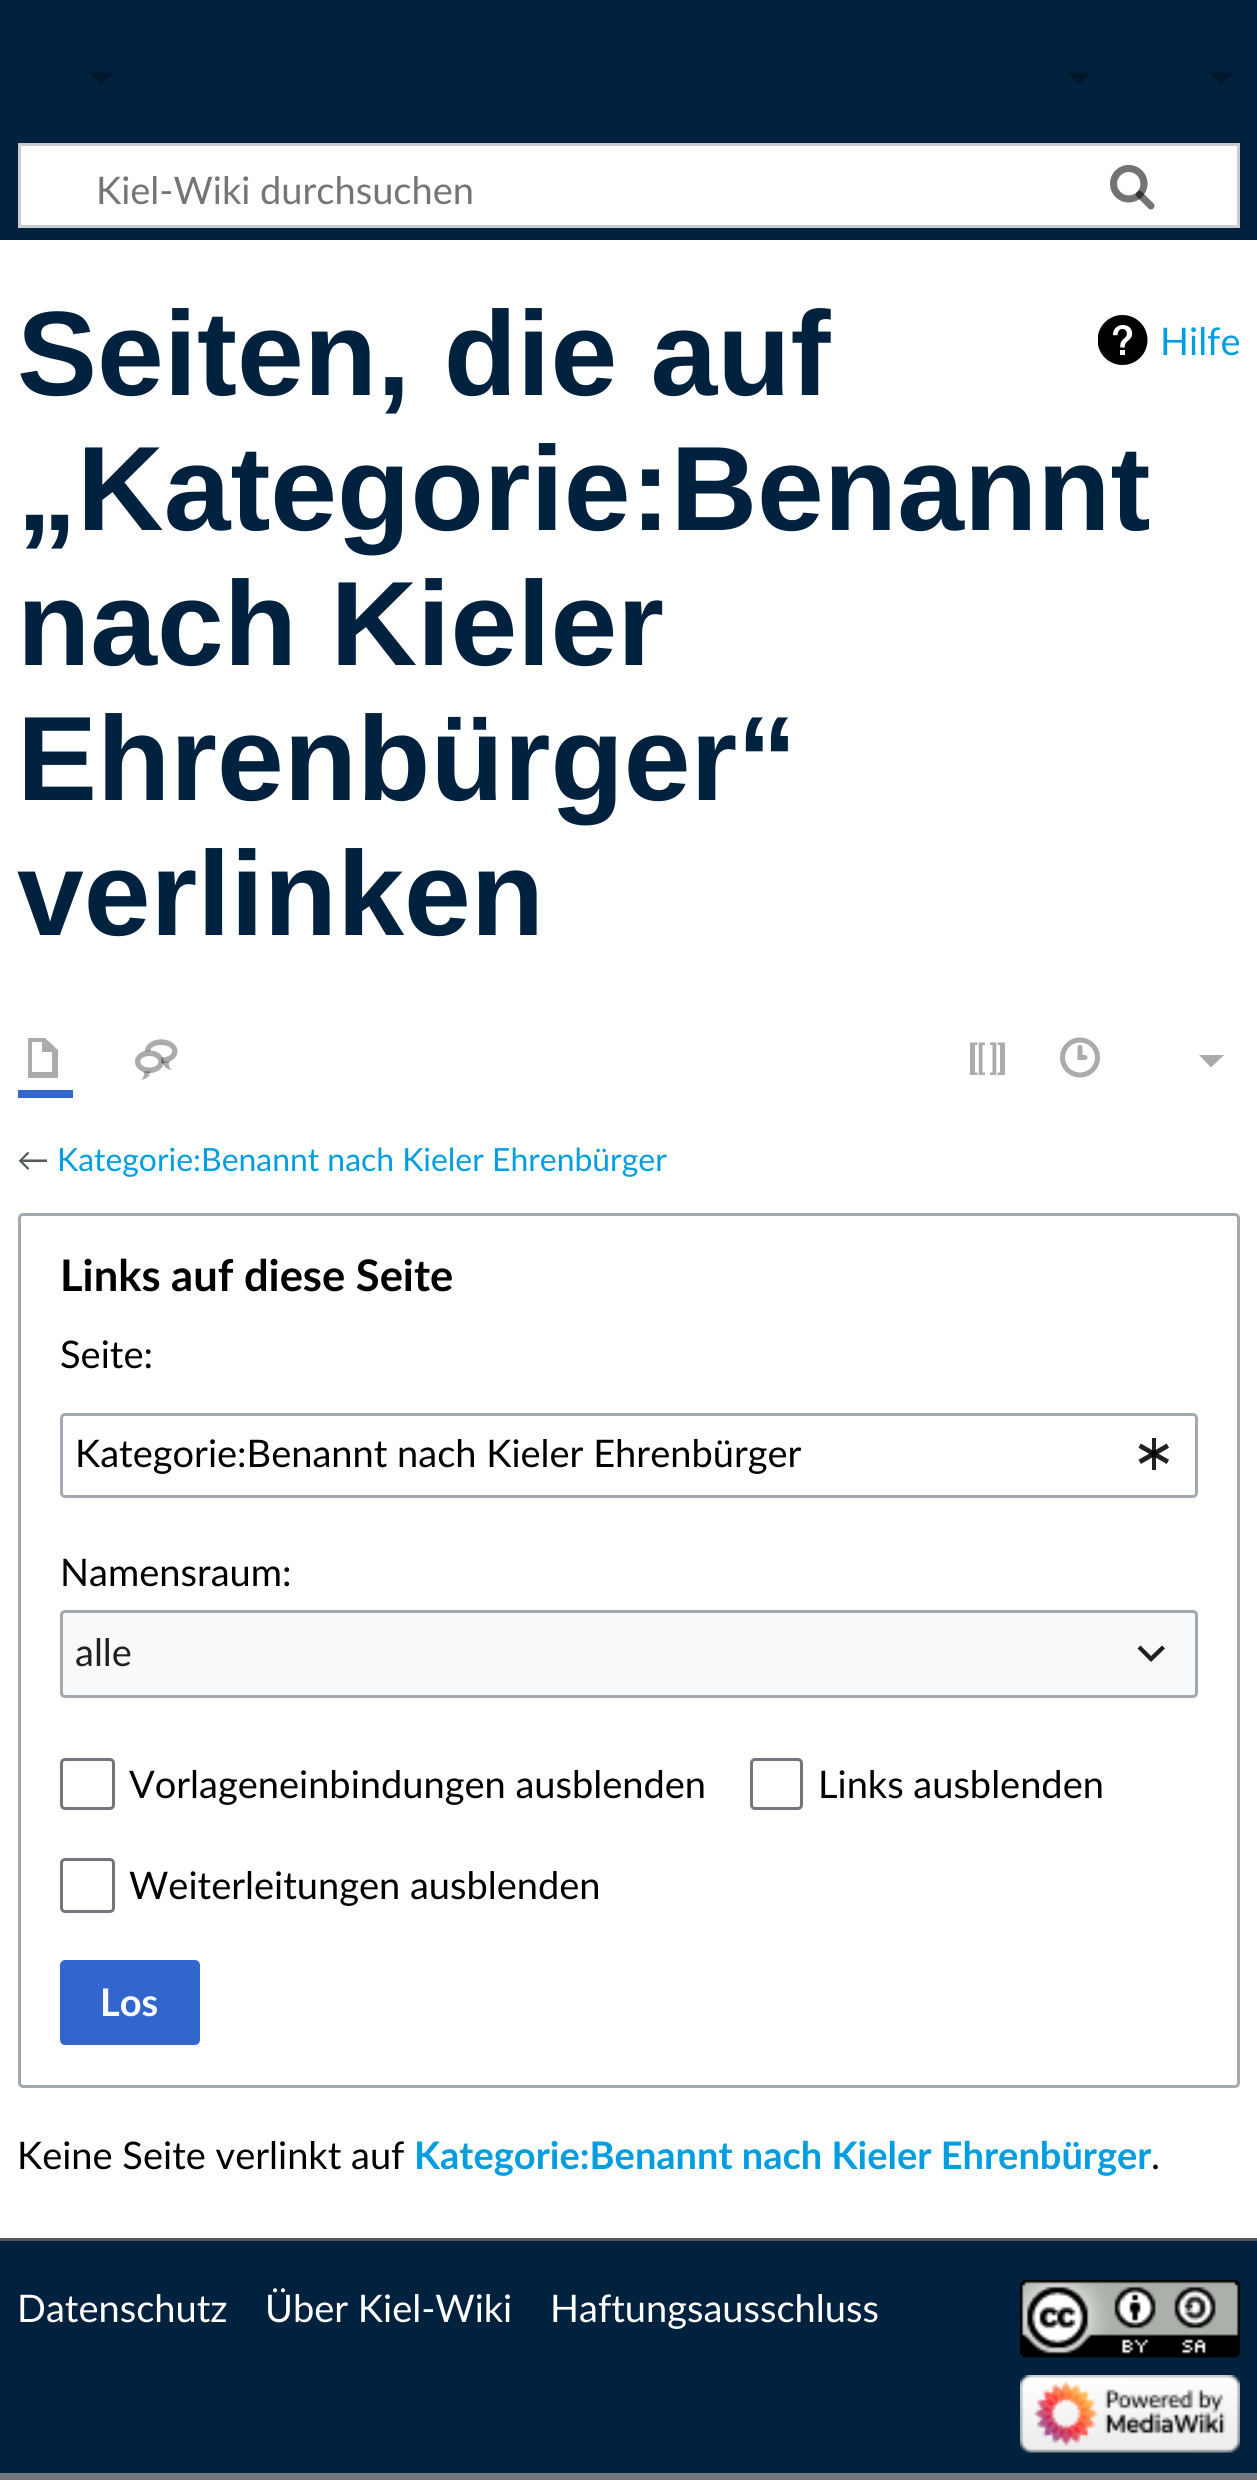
import math
import cairo

surface = cairo.ImageSurface(cairo.FORMAT_RGB24, 1257, 2480)
cr = cairo.Context(surface)
options = cairo.FontOptions()
options.set_hint_metrics(cairo.HINT_METRICS_OFF)
options.set_hint_style(cairo.HINT_STYLE_NONE)
cr.set_font_options(options)
cr.set_miter_limit(4)


def rgb(code):
    cr.set_source_rgb(*(v / 255 for v in bytes.fromhex(code[-6:])))


def rrect(x, y, w, h, r):
    cr.new_sub_path()
    for i, (u, v) in enumerate([(x + w - r, y + h - r), (x + r, y + h - r), (x + r, y + r), (x + w - r, y + r)]):
        cr.arc(u, v, r, i * math.pi / 2, (i + 1) * math.pi / 2)
    cr.close_path()


def image(path, x, y, w, h):
    cr.save()
    cr.set_source_surface(cairo.ImageSurface.create_from_png(path), x, y)
    cr.rectangle(x, y, w, h)
    cr.fill()
    cr.restore()


rgb("#72777d")
cr.paint()
rgb("#00223f")
cr.rectangle(0, 0, 1257, 240)
cr.fill()
rgb("#00172a")
cr.new_path()
cr.move_to(1234, 72.5)
cr.line_to(1221, 85)
cr.line_to(1209, 72.5)
cr.close_path()
cr.fill()
rgb("#ffffff")
cr.rectangle(19.5, 144.5, 1219, 82)
cr.fill_preserve()
rgb("#c8ccd1")
cr.set_line_width(3)
cr.stroke()
image("img/1.png", 1110, 165, 45, 45)
image("img/2.png", 1110, 165, 45, 45)
rgb("#00172a")
cr.new_path()
cr.move_to(114, 72.5)
cr.line_to(101, 85)
cr.line_to(89, 72.5)
cr.close_path()
cr.fill()
cr.new_path()
cr.move_to(1091, 72.5)
cr.line_to(1079, 85)
cr.line_to(1066, 72.5)
cr.close_path()
cr.fill()
rgb("#ffffff")
cr.rectangle(0, 240, 1257, 1998)
cr.fill()
image("img/3.png", 1098, 315, 50, 50)
rgb("#3366cc")
cr.rectangle(18, 1090, 55, 8)
cr.fill()
rgb("#ababab")
cr.new_path()
cr.move_to(28, 1038)
cr.line_to(28, 1078)
cr.line_to(58, 1078)
cr.line_to(58, 1050)
cr.line_to(45, 1038)
cr.close_path()
cr.move_to(32, 1042)
cr.line_to(42, 1042)
cr.line_to(42, 1052)
cr.line_to(52, 1052)
cr.line_to(52, 1072)
cr.line_to(32, 1072)
cr.close_path()
cr.fill()
image("img/4.png", 135, 1039, 43, 41)
image("img/5.png", 970, 1042, 35, 33)
image("img/6.png", 1060, 1037, 40, 41)
cr.new_path()
cr.move_to(1224, 1055)
cr.line_to(1211, 1067.5)
cr.line_to(1199, 1055)
cr.close_path()
cr.fill()
rrect(19.5, 1214.5, 1219, 872, 3.5)
rgb("#a2a9b1")
cr.stroke()
rrect(61.5, 1414.5, 1135, 82, 3.5)
cr.stroke()
image("img/7.png", 1138, 1438, 31, 32)
rgb("#f8f9fa")
cr.rectangle(60, 1610, 1138, 88)
cr.fill()
rrect(61.5, 1611.5, 1135, 85, 3.5)
rgb("#a2a9b1")
cr.stroke()
rgb("#202021")
cr.new_path()
cr.move_to(1162, 1645.5)
cr.line_to(1151, 1656)
cr.line_to(1140.5, 1645.5)
cr.line_to(1137.5, 1648.5)
cr.line_to(1151, 1662)
cr.line_to(1165, 1648.5)
cr.close_path()
cr.fill()
rrect(61.5, 1759.5, 52, 49, 3.5)
rgb("#72777d")
cr.stroke()
rrect(751.5, 1759.5, 50, 49, 3.5)
cr.stroke()
rrect(61.5, 1859.5, 52, 52, 3.5)
cr.stroke()
rgb("#3366cc")
rrect(61.5, 1961.5, 137, 82, 3.5)
cr.fill_preserve()
cr.stroke()
rgb("#00223f")
cr.rectangle(0, 2241, 1257, 232)
cr.fill()
rgb("#54595d")
cr.rectangle(0, 2238, 1257, 3)
cr.fill()
image("img/8.png", 1020, 2280, 220, 78)
image("img/9.png", 1020, 2375, 220, 78)
cr.select_font_face("Lato")
cr.set_font_size(38)
rgb("#757575")
cr.move_to(96, 204)
cr.show_text("Kiel-Wiki durchsuchen")
cr.select_font_face("Liberation Sans", cairo.FONT_SLANT_NORMAL, cairo.FONT_WEIGHT_BOLD)
cr.set_font_size(120)
rgb("#00223f")
for x, y, s in [
    (17, 395, "Seiten, die auf"),
    (17, 530, "„Kategorie:Benannt"),
    (17, 665, "nach Kieler"),
    (17, 800, "Ehrenbürger“"),
    (17, 935, "verlinken"),
]:
    cr.move_to(x, y)
    cr.show_text(s)
cr.select_font_face("Lato")
cr.set_font_size(38)
rgb("#009ee0")
cr.move_to(1160, 355)
cr.show_text("Hilfe")
cr.set_font_size(31.9)
rgb("#54595d")
cr.move_to(17, 1171)
cr.show_text("←")
rgb("#009ee0")
cr.move_to(57, 1171)
cr.show_text("Kategorie:Benannt nach Kieler Ehrenbürger")
cr.select_font_face("Lato", cairo.FONT_SLANT_NORMAL, cairo.FONT_WEIGHT_BOLD)
cr.set_font_size(43.5)
rgb("#000000")
cr.move_to(60, 1291)
cr.show_text("Links auf diese Seite")
cr.select_font_face("Lato")
cr.set_font_size(38)
for x, y, s in [
    (60, 1368, "Seite:"),
    (75, 1467, "Kategorie:Benannt nach Kieler Ehrenbürger"),
    (60, 1586, "Namensraum:"),
]:
    cr.move_to(x, y)
    cr.show_text(s)
rgb("#202122")
cr.move_to(75, 1666)
cr.show_text("alle")
rgb("#000000")
for x, y, s in [
    (129, 1798, "Vorlageneinbindungen ausblenden"),
    (818, 1798, "Links ausblenden"),
    (129, 1899, "Weiterleitungen ausblenden"),
]:
    cr.move_to(x, y)
    cr.show_text(s)
cr.select_font_face("Lato", cairo.FONT_SLANT_NORMAL, cairo.FONT_WEIGHT_BOLD)
rgb("#ffffff")
cr.move_to(100, 2016)
cr.show_text("Los")
cr.select_font_face("Lato")
rgb("#000000")
cr.move_to(17, 2169)
cr.show_text("Keine Seite verlinkt auf")
cr.select_font_face("Lato", cairo.FONT_SLANT_NORMAL, cairo.FONT_WEIGHT_BOLD)
rgb("#009ee0")
cr.move_to(414, 2169)
cr.show_text("Kategorie:Benannt nach Kieler Ehrenbürger")
cr.select_font_face("Lato")
rgb("#000000")
cr.move_to(1151, 2169)
cr.show_text(".")
rgb("#ffffff")
for x, y, s in [
    (17, 2322, "Datenschutz"),
    (265, 2322, "Über Kiel-Wiki"),
    (550, 2322, "Haftungsausschluss"),
]:
    cr.move_to(x, y)
    cr.show_text(s)
surface.write_to_png("page.png")
